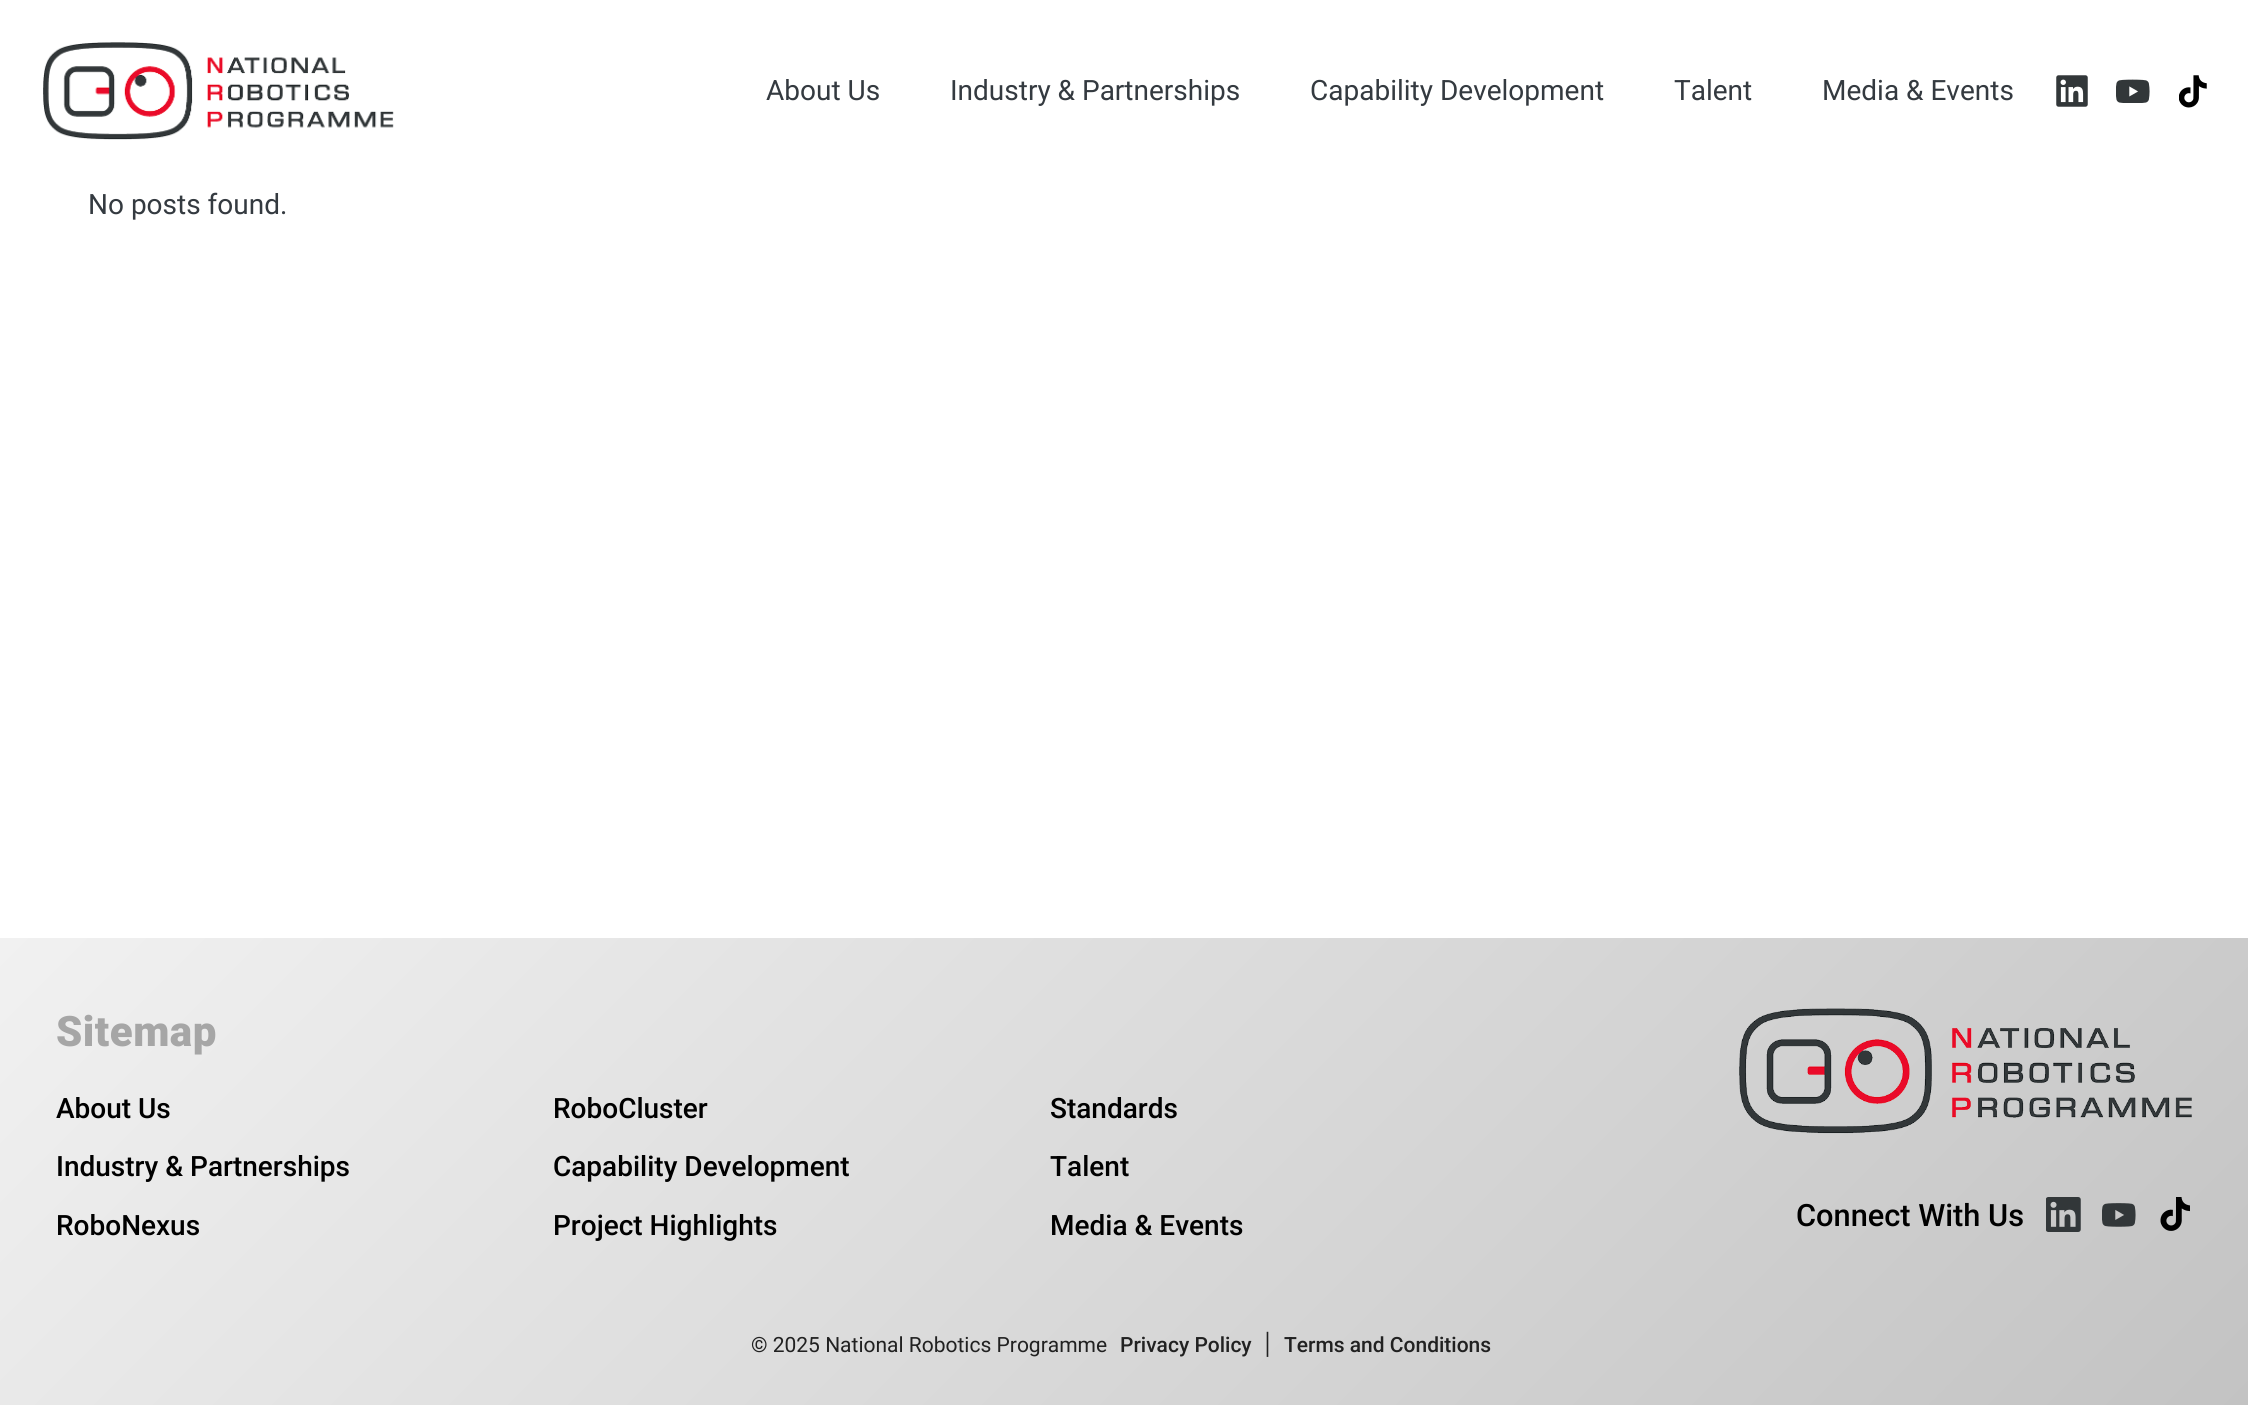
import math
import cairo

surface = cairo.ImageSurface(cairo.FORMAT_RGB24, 2248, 1405)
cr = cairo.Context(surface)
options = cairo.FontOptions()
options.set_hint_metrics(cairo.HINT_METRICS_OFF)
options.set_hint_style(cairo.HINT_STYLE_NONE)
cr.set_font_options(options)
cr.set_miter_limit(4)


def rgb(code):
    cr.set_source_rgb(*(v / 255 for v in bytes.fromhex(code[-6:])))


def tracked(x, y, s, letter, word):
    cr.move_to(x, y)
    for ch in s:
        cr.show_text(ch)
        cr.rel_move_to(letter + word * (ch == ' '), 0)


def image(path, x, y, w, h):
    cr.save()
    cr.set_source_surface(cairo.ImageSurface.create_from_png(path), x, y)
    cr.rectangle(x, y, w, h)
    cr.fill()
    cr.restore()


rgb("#ffffff")
cr.paint()
image("img/1.png", 43, 42, 351, 98)
image("img/2.png", 2056, 75, 32, 32)
image("img/3.png", 2116, 79, 34, 24)
image("img/4.png", 2179, 75, 28, 33)
gradient = cairo.LinearGradient(445, 493, 1803, 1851)
gradient.add_color_stop_rgba(0, 0.945, 0.945, 0.945, 1)
gradient.add_color_stop_rgba(1, 0.765, 0.765, 0.765, 1)
cr.set_source(gradient)
cr.rectangle(0, 938, 2248, 467)
cr.fill()
image("img/5.png", 1739, 1008, 453, 126)
image("img/6.png", 2046, 1197, 35, 35)
image("img/7.png", 2102, 1203, 34, 24)
image("img/8.png", 2160, 1197, 30, 34)
cr.select_font_face("Roboto")
cr.set_font_size(28)
rgb("#343a40")
for x, y, s in [
    (766, 100, "About Us"),
    (950, 100, "Industry & Partnerships"),
    (1310, 100, "Capability Development"),
    (1674, 100, "Talent"),
    (1822, 100, "Media & Events"),
    (88, 214, "No posts found."),
]:
    cr.move_to(x, y)
    cr.show_text(s)
cr.select_font_face("Roboto Black")
cr.set_font_size(42)
rgb("#a6a6a6")
tracked(56, 1046, "Sitemap", 0.5, 0)
cr.select_font_face("Roboto Medium")
cr.set_font_size(28)
rgb("#000000")
for x, y, s in [
    (56, 1118, "About Us"),
    (553, 1118, "RoboCluster"),
    (1050, 1118, "Standards"),
    (56, 1176, "Industry & Partnerships"),
    (553, 1176, "Capability Development"),
    (1050, 1176, "Talent"),
    (56, 1235, "RoboNexus"),
    (553, 1235, "Project Highlights"),
    (1050, 1235, "Media & Events"),
]:
    cr.move_to(x, y)
    cr.show_text(s)
cr.set_font_size(30.75)
cr.move_to(1796, 1226)
cr.show_text("Connect With Us")
cr.select_font_face("Roboto")
cr.set_font_size(21)
rgb("#212121")
cr.move_to(751, 1352)
cr.show_text("© 2025 National Robotics Programme")
cr.select_font_face("Roboto Medium")
cr.move_to(1120, 1352)
cr.show_text("Privacy Policy")
cr.select_font_face("Inter")
cr.move_to(1264, 1352)
cr.show_text("|")
cr.select_font_face("Roboto Medium")
cr.move_to(1284, 1352)
cr.show_text("Terms and Conditions")
surface.write_to_png("page.png")
